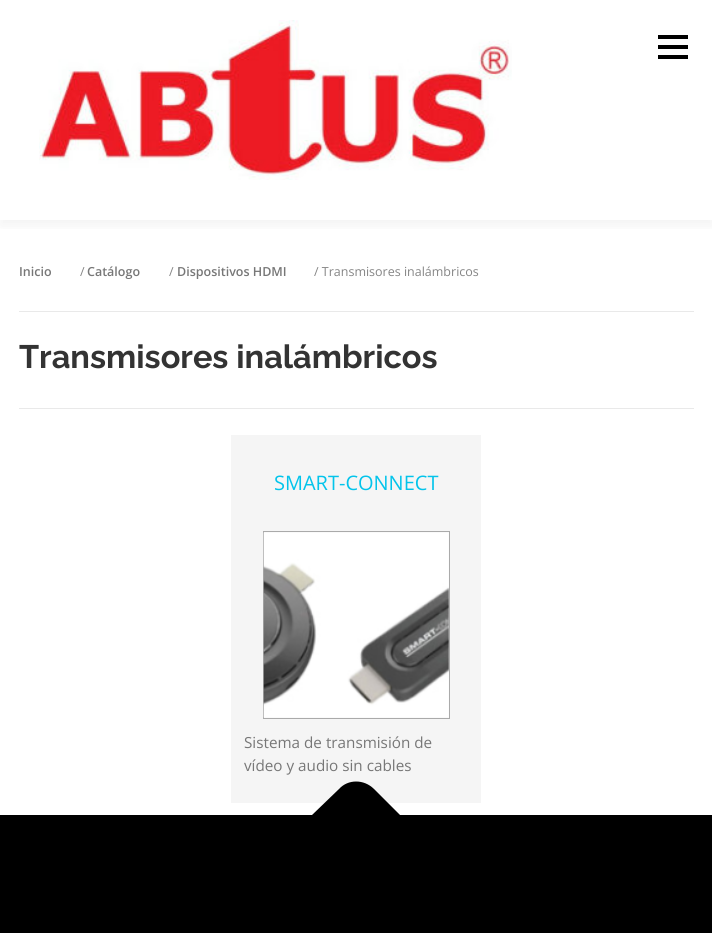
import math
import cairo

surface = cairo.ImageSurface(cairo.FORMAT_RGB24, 712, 939)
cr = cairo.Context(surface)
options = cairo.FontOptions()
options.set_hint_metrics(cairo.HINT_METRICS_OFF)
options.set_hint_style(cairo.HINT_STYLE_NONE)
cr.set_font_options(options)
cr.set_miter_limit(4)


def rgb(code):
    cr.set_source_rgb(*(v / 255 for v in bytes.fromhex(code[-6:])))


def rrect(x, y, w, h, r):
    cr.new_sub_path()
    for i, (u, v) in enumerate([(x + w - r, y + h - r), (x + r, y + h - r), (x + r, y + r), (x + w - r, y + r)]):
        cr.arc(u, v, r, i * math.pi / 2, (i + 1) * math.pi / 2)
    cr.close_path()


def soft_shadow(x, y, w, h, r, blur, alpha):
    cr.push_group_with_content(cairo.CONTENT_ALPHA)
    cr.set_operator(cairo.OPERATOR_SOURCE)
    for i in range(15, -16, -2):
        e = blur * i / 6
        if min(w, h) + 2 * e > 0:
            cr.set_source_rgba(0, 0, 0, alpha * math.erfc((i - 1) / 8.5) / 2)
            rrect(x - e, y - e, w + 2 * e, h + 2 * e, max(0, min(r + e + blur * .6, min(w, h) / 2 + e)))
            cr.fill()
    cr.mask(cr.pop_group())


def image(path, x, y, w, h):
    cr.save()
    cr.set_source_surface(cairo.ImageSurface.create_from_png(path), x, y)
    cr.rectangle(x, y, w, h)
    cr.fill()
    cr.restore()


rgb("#ffffff")
cr.paint()
cr.save()
cr.rectangle(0, 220, 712, 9)
cr.clip()
rgb("#323232")
soft_shadow(0, 6, 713, 220, 0, 6, 0.06)
cr.restore()
image("img/1.png", 39, 20, 473, 160)
for x, y, w, h, color in [
    (658, 45, 30, 4, "#000000"),
    (658, 35, 30, 4, "#000000"),
    (658, 55, 30, 4, "#000000"),
    (19, 311, 675, 1, "#e9e9e9"),
    (19, 408, 675, 1, "#e9e9e9"),
    (231, 435, 250, 368, "#f5f5f5"),
]:
    rgb(color)
    cr.rectangle(x, y, w, h)
    cr.fill()
cr.rectangle(263.5, 531.5, 186, 187)
rgb("#aaaaaa")
cr.set_line_width(1)
cr.stroke()
image("img/2.png", 263, 532, 186, 186)
rgb("#000000")
cr.rectangle(0, 815, 712, 118)
cr.fill()
cr.new_path()
cr.move_to(312, 815)
cr.line_to(339, 789)
cr.curve_to(348, 779, 364, 779, 374, 789)
cr.line_to(400, 815)
cr.line_to(356, 859)
cr.close_path()
cr.fill()
cr.select_font_face("Open Sans SemiBold")
cr.set_font_size(12.5)
rgb("#777777")
cr.move_to(19, 276)
cr.show_text("Inicio")
cr.select_font_face("Open Sans")
rgb("#858585")
cr.move_to(80, 276)
cr.show_text("/")
cr.select_font_face("Open Sans SemiBold")
rgb("#777777")
cr.move_to(87, 276)
cr.show_text("Catálogo")
cr.select_font_face("Open Sans")
rgb("#858585")
cr.move_to(169, 276)
cr.show_text("/")
cr.select_font_face("Open Sans SemiBold")
rgb("#777777")
cr.move_to(177, 276)
cr.show_text("Dispositivos HDMI")
cr.select_font_face("Open Sans")
rgb("#858585")
cr.move_to(314, 276)
cr.show_text("/ Transmisores inalámbricos")
cr.select_font_face("Raleway", cairo.FONT_SLANT_NORMAL, cairo.FONT_WEIGHT_BOLD)
cr.set_font_size(32.5)
rgb("#333333")
cr.move_to(19, 368)
cr.show_text("Transmisores inalámbricos")
cr.select_font_face("Open Sans")
cr.set_font_size(20)
rgb("#03c4eb")
cr.move_to(274, 490)
cr.show_text("SMART-CONNECT")
cr.set_font_size(15.25)
rgb("#777777")
cr.move_to(244, 748)
cr.show_text("Sistema de transmisión de")
cr.move_to(244, 771)
cr.show_text("vídeo y audio sin cables")
surface.write_to_png("page.png")
